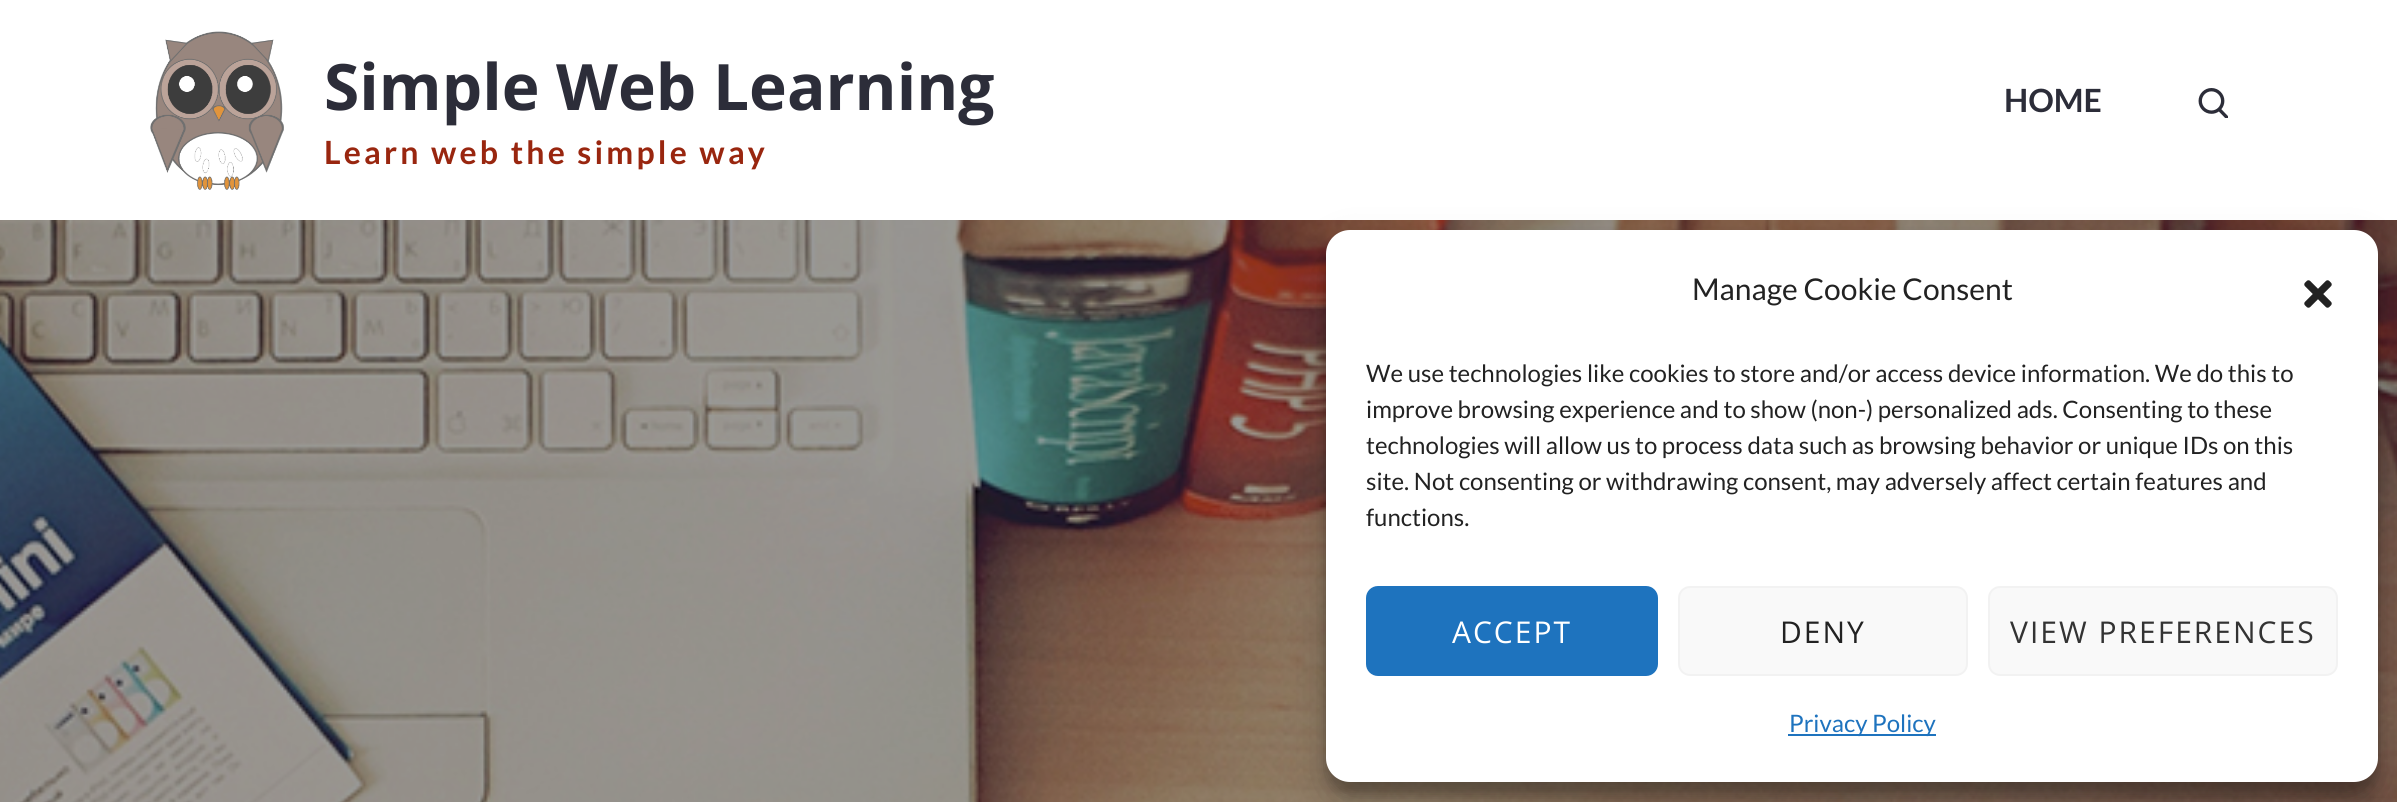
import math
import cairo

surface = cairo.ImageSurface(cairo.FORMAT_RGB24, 2397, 802)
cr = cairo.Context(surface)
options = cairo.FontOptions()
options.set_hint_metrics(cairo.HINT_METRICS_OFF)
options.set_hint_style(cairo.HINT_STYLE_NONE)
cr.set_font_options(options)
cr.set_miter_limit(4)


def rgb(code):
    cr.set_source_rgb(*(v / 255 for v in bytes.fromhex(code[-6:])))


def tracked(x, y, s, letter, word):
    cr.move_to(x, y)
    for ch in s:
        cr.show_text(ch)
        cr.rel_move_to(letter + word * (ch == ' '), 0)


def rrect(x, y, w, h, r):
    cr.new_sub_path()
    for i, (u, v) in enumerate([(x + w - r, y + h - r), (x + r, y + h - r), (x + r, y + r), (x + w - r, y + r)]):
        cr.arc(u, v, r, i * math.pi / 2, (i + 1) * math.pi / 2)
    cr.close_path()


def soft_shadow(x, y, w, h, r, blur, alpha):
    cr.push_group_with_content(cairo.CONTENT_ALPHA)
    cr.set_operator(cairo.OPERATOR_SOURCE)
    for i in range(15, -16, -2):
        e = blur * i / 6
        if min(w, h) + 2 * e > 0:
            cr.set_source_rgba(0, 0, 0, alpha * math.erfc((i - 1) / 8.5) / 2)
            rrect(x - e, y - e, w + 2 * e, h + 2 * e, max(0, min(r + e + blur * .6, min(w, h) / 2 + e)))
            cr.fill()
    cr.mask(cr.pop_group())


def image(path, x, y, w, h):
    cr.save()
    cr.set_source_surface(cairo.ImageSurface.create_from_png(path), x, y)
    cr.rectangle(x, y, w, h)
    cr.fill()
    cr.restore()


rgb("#ffffff")
cr.paint()
image("img/1.png", 150, 31, 134, 159)
image("img/2.png", 2198, 88, 30, 30)
image("img/3.png", 0, 220, 2397, 582)
rgb("#000000")
soft_shadow(1326, 242, 1052, 552, 24, 6, 0.23)
soft_shadow(1326, 250, 1052, 552, 24, 20, 0.19)
rgb("#ffffff")
rrect(1326, 230, 1052, 552, 24)
cr.fill()
image("img/4.png", 2304, 280, 28, 28)
rgb("#1e73be")
rrect(1367, 587, 290, 88, 11)
cr.fill_preserve()
cr.stroke()
rgb("#f9f9f9")
rrect(1679, 587, 288, 88, 11)
cr.fill_preserve()
rgb("#f2f2f2")
cr.stroke()
rgb("#f9f9f9")
rrect(1989, 587, 348, 88, 11)
cr.fill_preserve()
rgb("#f2f2f2")
cr.stroke()
rgb("#1e73be")
cr.rectangle(1788, 734, 148, 2)
cr.fill()
cr.select_font_face("Open Sans", cairo.FONT_SLANT_NORMAL, cairo.FONT_WEIGHT_BOLD)
cr.set_font_size(64)
rgb("#2c2d39")
cr.move_to(324, 110)
cr.show_text("Simple Web Learning")
cr.select_font_face("Lato", cairo.FONT_SLANT_NORMAL, cairo.FONT_WEIGHT_BOLD)
cr.set_font_size(32)
rgb("#99260f")
tracked(324, 164, "Learn web the simple way", 3.2, 0)
rgb("#2c2d39")
cr.move_to(2004, 112)
cr.show_text("HOME")
cr.select_font_face("Lato")
cr.set_font_size(30)
rgb("#222222")
cr.move_to(1692, 300)
cr.show_text("Manage Cookie Consent")
cr.set_font_size(24)
for x, y, s in [
    (1366, 382, "We use technologies like cookies to store and/or access device information. We do this to"),
    (1366, 418, "improve browsing experience and to show (non-) personalized ads. Consenting to these"),
    (1366, 454, "technologies will allow us to process data such as browsing behavior or unique IDs on this"),
    (1366, 490, "site. Not consenting or withdrawing consent, may adversely affect certain features and"),
    (1366, 526, "functions."),
]:
    cr.move_to(x, y)
    cr.show_text(s)
cr.select_font_face("Open Sans")
cr.set_font_size(30)
rgb("#ffffff")
tracked(1452, 643, "ACCEPT", 2, 0)
rgb("#222222")
tracked(1780, 643, "DENY", 2, 0)
rgb("#333333")
tracked(2010, 643, "VIEW PREFERENCES", 2, 0)
cr.select_font_face("Lato")
cr.set_font_size(24)
rgb("#1e73be")
cr.move_to(1789, 732)
cr.show_text("Privacy Policy")
surface.write_to_png("page.png")
